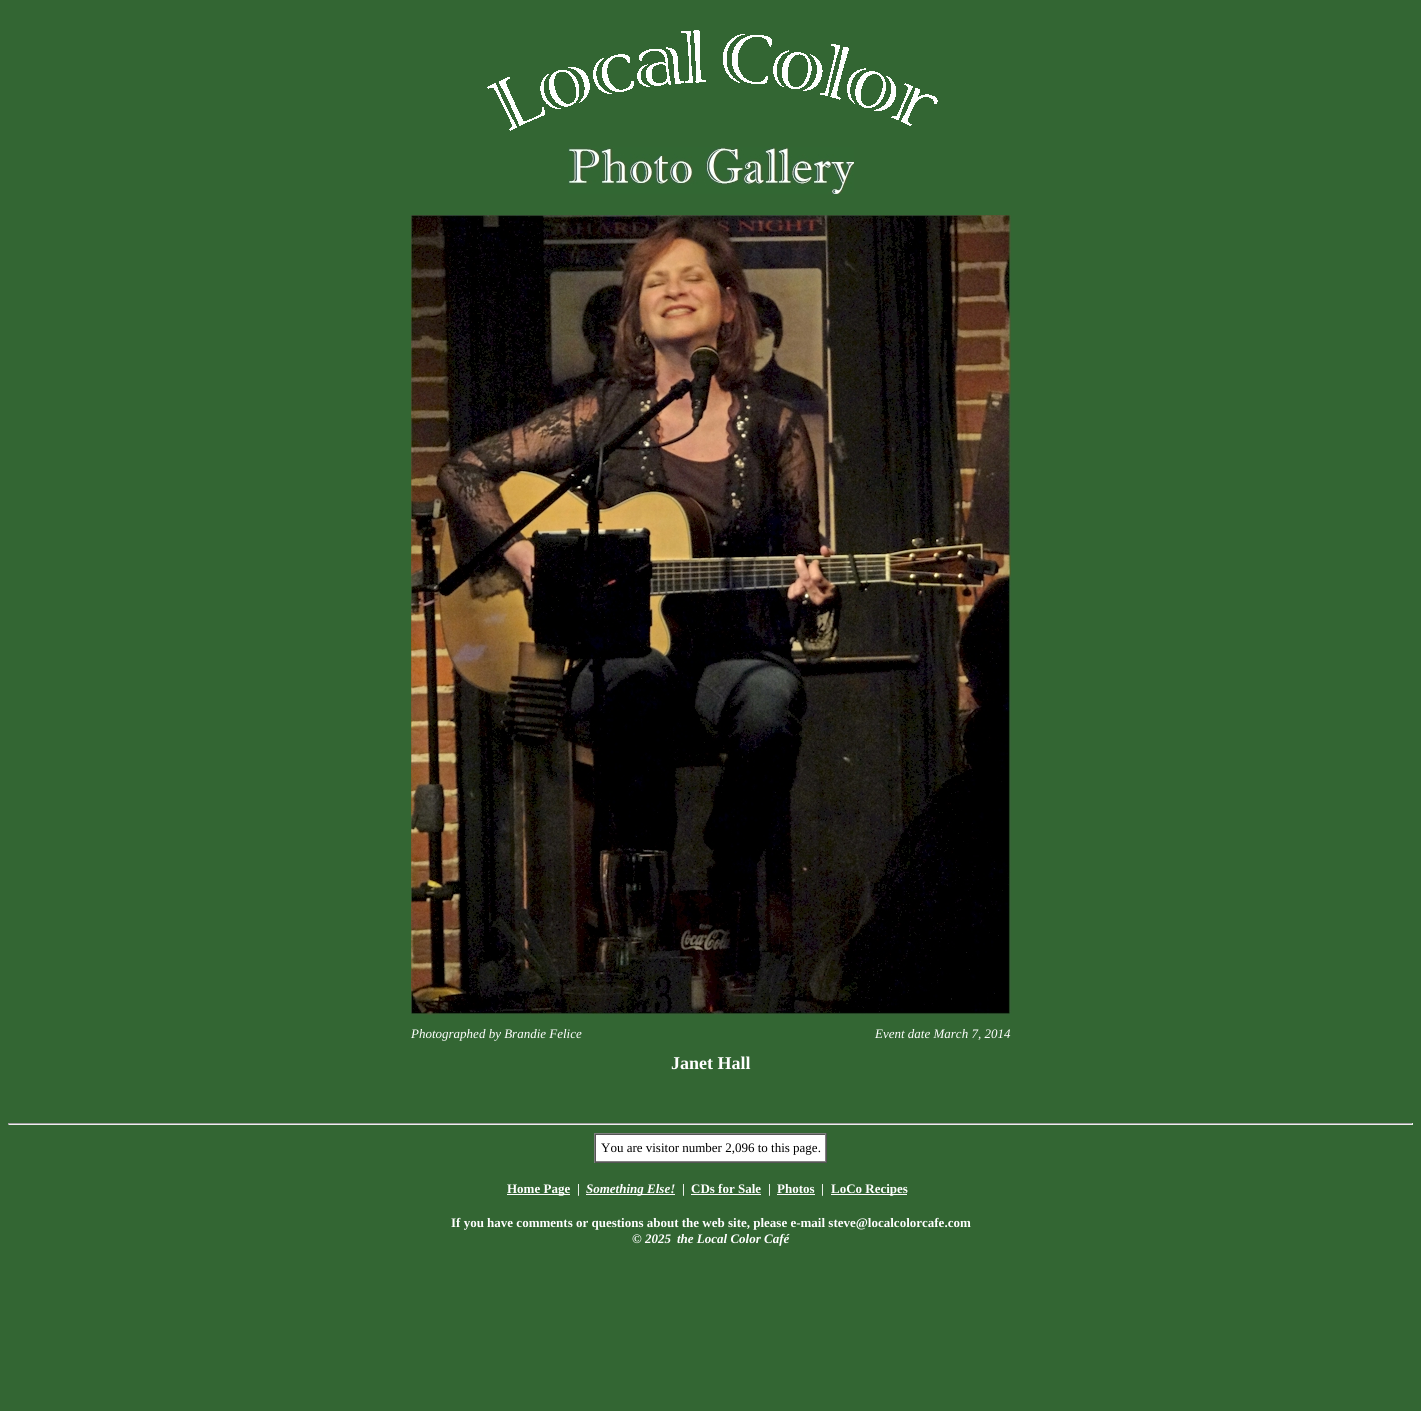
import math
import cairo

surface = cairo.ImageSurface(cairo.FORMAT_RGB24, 1421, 1411)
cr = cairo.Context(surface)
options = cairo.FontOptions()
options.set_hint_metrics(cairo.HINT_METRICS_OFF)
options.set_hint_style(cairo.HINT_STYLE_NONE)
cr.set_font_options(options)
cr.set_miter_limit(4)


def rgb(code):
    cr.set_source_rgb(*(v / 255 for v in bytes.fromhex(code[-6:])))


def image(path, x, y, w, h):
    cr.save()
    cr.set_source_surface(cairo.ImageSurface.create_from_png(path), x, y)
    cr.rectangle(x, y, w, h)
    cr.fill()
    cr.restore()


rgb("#336633")
cr.paint()
image("img/1.png", 487, 30, 451, 101)
image("img/2.png", 568, 147, 286, 47)
image("img/3.png", 411, 215, 600, 800)
for x, y, w, h, color in [
    (8, 1123, 1405, 1, "#9f9f9f"),
    (1412, 1123, 1, 2, "#eeeeee"),
    (8, 1124, 1405, 1, "#eeeeee"),
    (8, 1123, 1, 2, "#9f9f9f"),
    (596, 1135, 229, 26, "#ffffff"),
    (594, 1133, 233, 1, "#808080"),
    (826, 1133, 1, 30, "#555555"),
    (594, 1162, 233, 1, "#555555"),
    (594, 1133, 1, 30, "#808080"),
    (595, 1134, 231, 1, "#555555"),
    (825, 1134, 1, 28, "#808080"),
    (595, 1161, 231, 1, "#808080"),
    (595, 1134, 1, 28, "#555555"),
    (507, 1194, 63, 1, "#ffffff"),
    (586, 1194, 89, 1, "#ffffff"),
    (691, 1194, 70, 1, "#ffffff"),
    (777, 1194, 38, 1, "#ffffff"),
    (831, 1194, 76, 1, "#ffffff"),
]:
    rgb(color)
    cr.rectangle(x, y, w, h)
    cr.fill()
cr.select_font_face("Liberation Serif", cairo.FONT_SLANT_ITALIC)
cr.set_font_size(13)
cr.move_to(411, 1038)
cr.show_text("Photographed by Brandie Felice")
cr.move_to(875, 1038)
cr.show_text("Event date March 7, 2014")
cr.select_font_face("Liberation Serif", cairo.FONT_SLANT_NORMAL, cairo.FONT_WEIGHT_BOLD)
cr.set_font_size(18)
cr.move_to(671, 1069)
cr.show_text("Janet Hall")
cr.select_font_face("Liberation Serif")
cr.set_font_size(13)
rgb("#000000")
cr.move_to(601, 1152)
cr.show_text("You are visitor number 2,096 to this page.")
cr.select_font_face("Liberation Serif", cairo.FONT_SLANT_NORMAL, cairo.FONT_WEIGHT_BOLD)
rgb("#ffffff")
cr.move_to(507, 1193)
cr.show_text("Home Page")
cr.move_to(577, 1193)
cr.show_text("|")
cr.select_font_face("Liberation Serif", cairo.FONT_SLANT_ITALIC, cairo.FONT_WEIGHT_BOLD)
cr.move_to(586, 1193)
cr.show_text("Something Else!")
cr.select_font_face("Liberation Serif", cairo.FONT_SLANT_NORMAL, cairo.FONT_WEIGHT_BOLD)
for x, y, s in [
    (682, 1193, "|"),
    (691, 1193, "CDs for Sale"),
    (768, 1193, "|"),
    (777, 1193, "Photos"),
    (821, 1193, "|"),
    (831, 1193, "LoCo Recipes"),
    (451, 1227, "If you have comments or questions about the web site, please e-mail steve@localcolorcafe.com"),
]:
    cr.move_to(x, y)
    cr.show_text(s)
cr.select_font_face("Liberation Serif", cairo.FONT_SLANT_ITALIC, cairo.FONT_WEIGHT_BOLD)
cr.move_to(632, 1243)
cr.show_text("© 2025")
cr.move_to(677, 1243)
cr.show_text("the Local Color Café")
surface.write_to_png("page.png")
